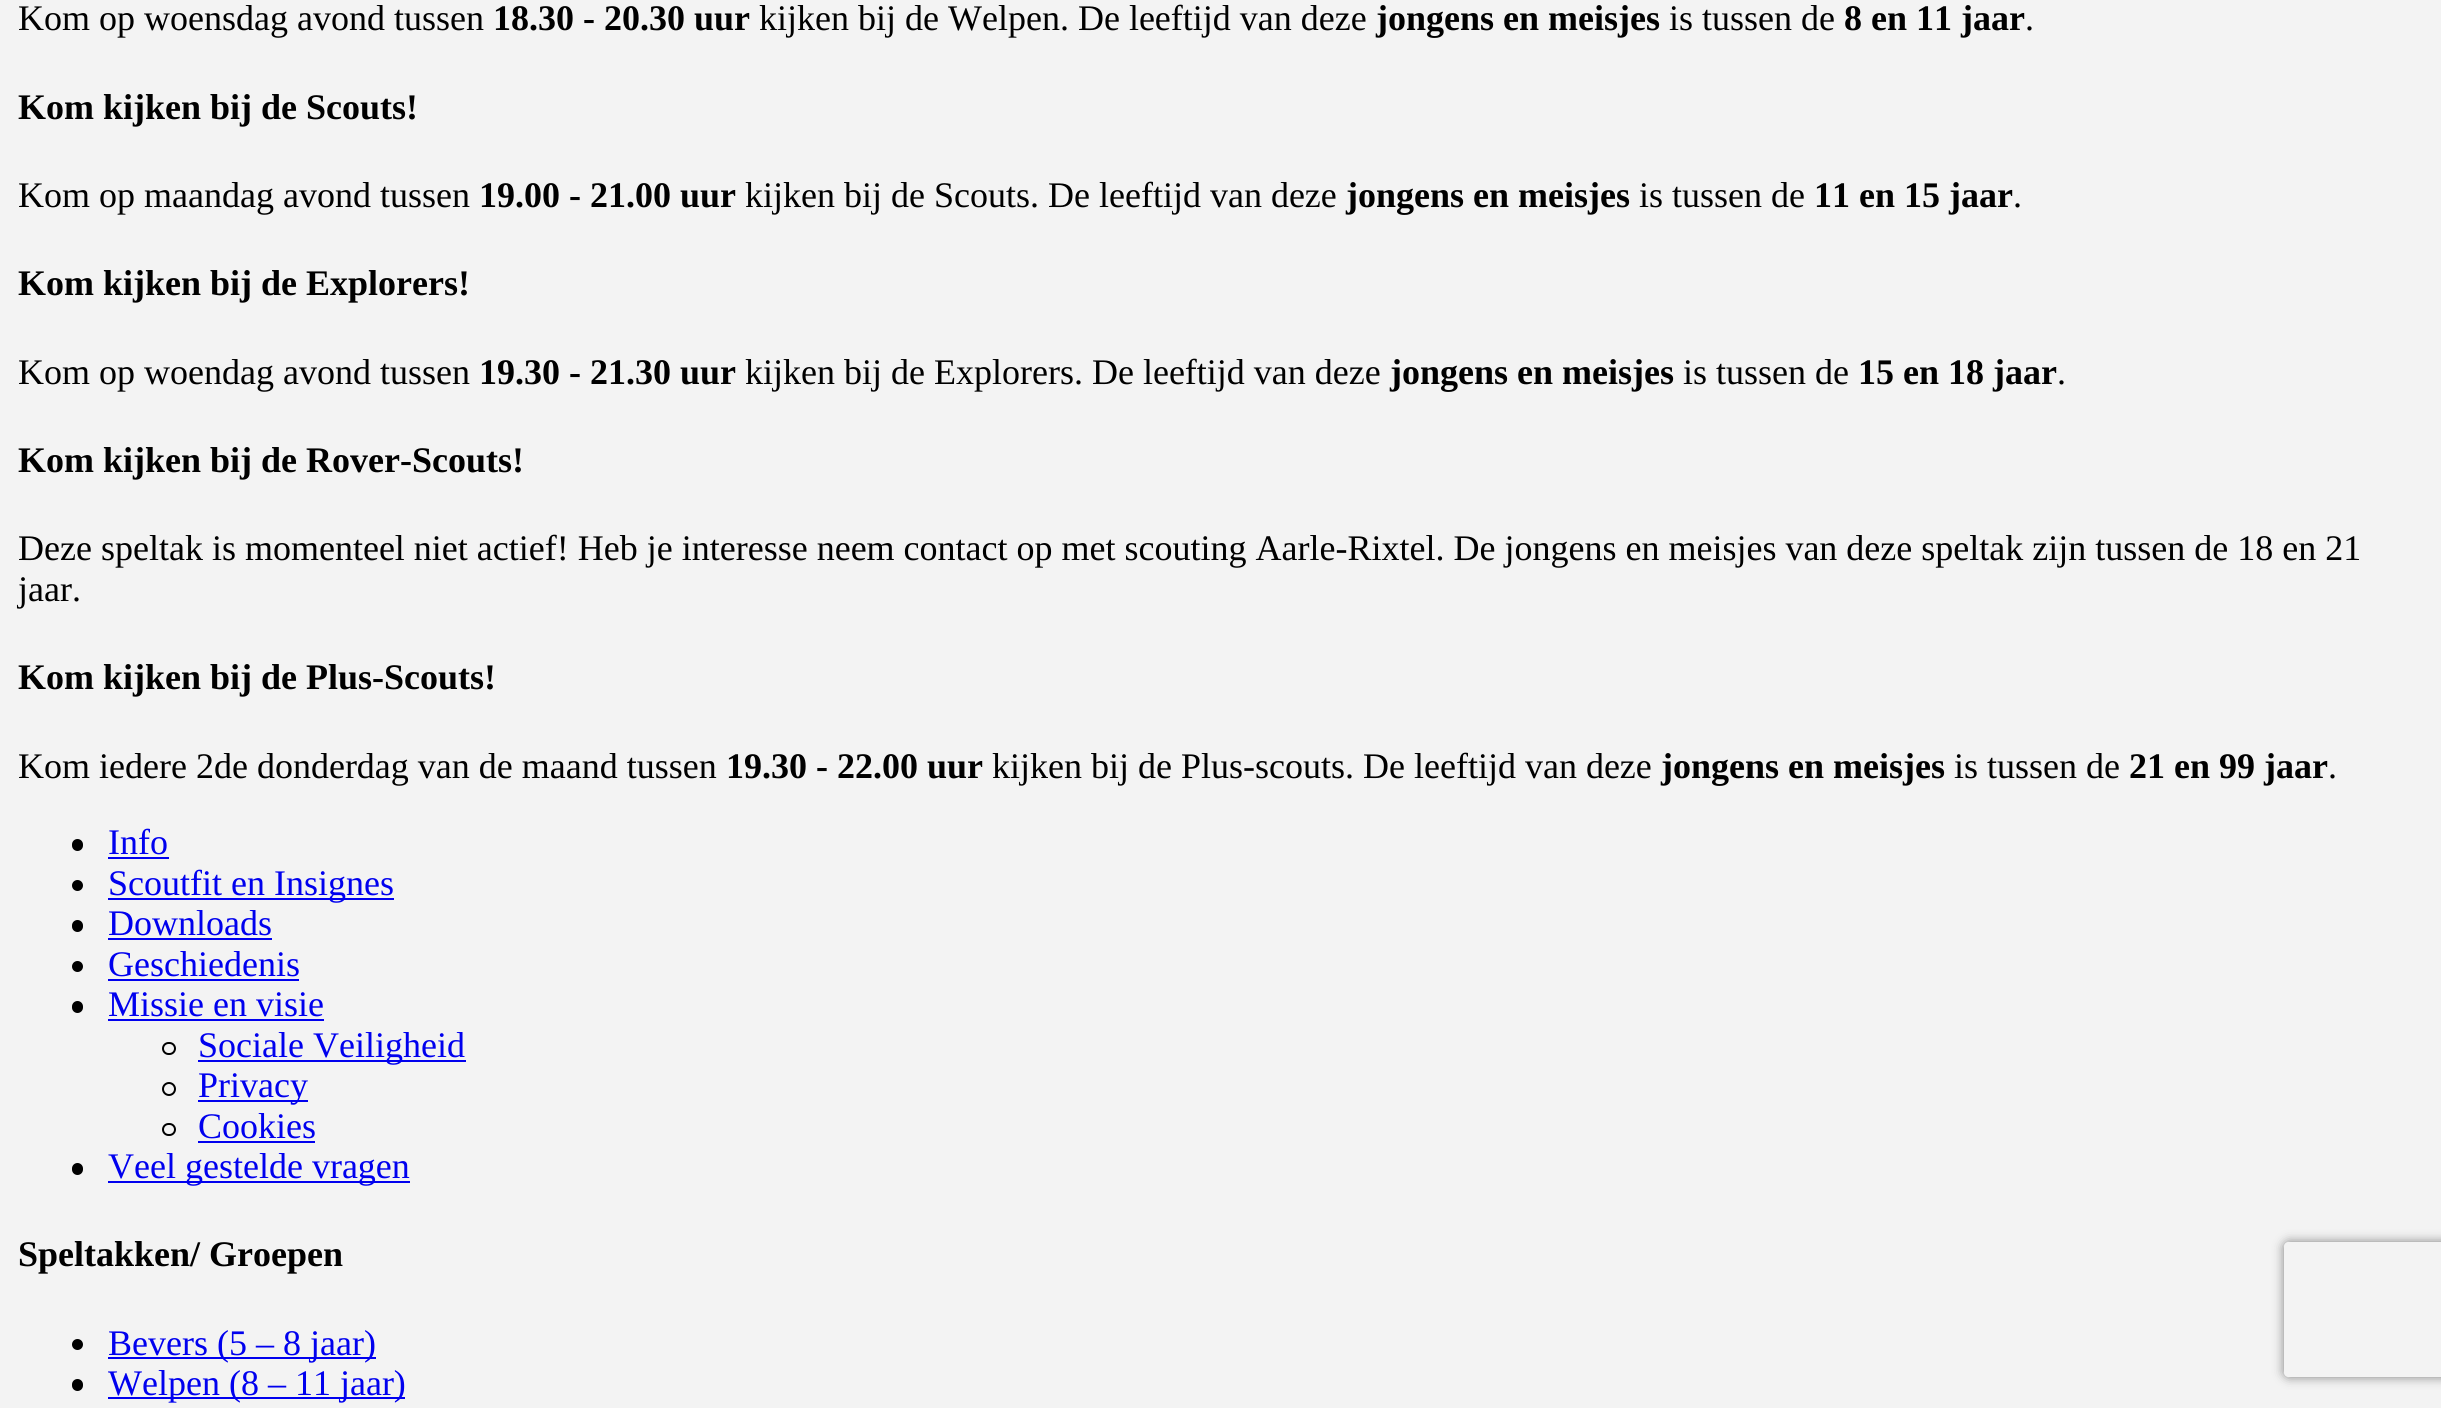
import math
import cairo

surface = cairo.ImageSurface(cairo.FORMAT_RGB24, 2441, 1408)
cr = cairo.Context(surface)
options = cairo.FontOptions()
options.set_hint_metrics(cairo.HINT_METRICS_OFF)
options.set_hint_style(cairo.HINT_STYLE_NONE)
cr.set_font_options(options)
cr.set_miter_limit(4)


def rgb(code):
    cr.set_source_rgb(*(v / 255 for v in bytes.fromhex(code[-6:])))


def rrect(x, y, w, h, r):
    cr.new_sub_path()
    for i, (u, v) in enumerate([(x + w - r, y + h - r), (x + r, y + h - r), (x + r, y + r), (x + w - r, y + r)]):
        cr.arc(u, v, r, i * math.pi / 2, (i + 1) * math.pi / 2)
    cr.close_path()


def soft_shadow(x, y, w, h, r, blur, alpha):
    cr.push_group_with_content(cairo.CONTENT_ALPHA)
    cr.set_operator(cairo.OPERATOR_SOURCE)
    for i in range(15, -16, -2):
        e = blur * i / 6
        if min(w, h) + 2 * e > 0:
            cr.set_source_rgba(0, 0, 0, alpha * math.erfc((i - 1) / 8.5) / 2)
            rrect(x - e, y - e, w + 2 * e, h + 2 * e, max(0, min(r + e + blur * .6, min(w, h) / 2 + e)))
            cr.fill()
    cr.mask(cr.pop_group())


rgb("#f3f3f3")
cr.paint()
rgb("#000000")
rrect(72, 839, 11, 12, 5.5)
cr.fill()
rgb("#0000ee")
cr.rectangle(108, 857, 61, 2)
cr.fill()
rgb("#000000")
cr.arc(77.5, 885.5, 5.5, 0, 2 * math.pi)
cr.fill()
rgb("#0000ee")
cr.rectangle(108, 898, 286, 2)
cr.fill()
rgb("#000000")
rrect(72, 920, 11, 12, 5.5)
cr.fill()
rgb("#0000ee")
cr.rectangle(108, 938, 164, 2)
cr.fill()
rgb("#000000")
cr.arc(77.5, 966.5, 5.5, 0, 2 * math.pi)
cr.fill()
rgb("#0000ee")
cr.rectangle(108, 979, 191, 2)
cr.fill()
rgb("#000000")
rrect(72, 1001, 11, 12, 5.5)
cr.fill()
rgb("#0000ee")
cr.rectangle(108, 1019, 216, 2)
cr.fill()
rrect(163, 1043, 12, 11, 5.5)
rgb("#000000")
cr.stroke()
rgb("#0000ee")
cr.rectangle(198, 1060, 268, 2)
cr.fill()
cr.arc(169, 1089, 6, 0, 2 * math.pi)
rgb("#000000")
cr.stroke()
rgb("#0000ee")
cr.rectangle(198, 1100, 110, 2)
cr.fill()
rrect(163, 1124, 12, 11, 5.5)
rgb("#000000")
cr.stroke()
rgb("#0000ee")
cr.rectangle(198, 1141, 117, 2)
cr.fill()
rgb("#000000")
rrect(72, 1163, 11, 12, 5.5)
cr.fill()
rgb("#0000ee")
cr.rectangle(108, 1181, 302, 2)
cr.fill()
rgb("#000000")
cr.arc(77.5, 1344.5, 5.5, 0, 2 * math.pi)
cr.fill()
rgb("#0000ee")
cr.rectangle(108, 1357, 268, 2)
cr.fill()
rgb("#000000")
rrect(72, 1379, 11, 12, 5.5)
cr.fill()
rgb("#0000ee")
cr.rectangle(108, 1397, 297, 2)
cr.fill()
cr.save()
cr.set_fill_rule(cairo.FILL_RULE_EVEN_ODD)
cr.new_path()
cr.move_to(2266, 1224)
cr.line_to(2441, 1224)
cr.line_to(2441, 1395)
cr.line_to(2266, 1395)
cr.close_path()
cr.move_to(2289, 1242)
cr.line_to(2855, 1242)
cr.curve_to(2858, 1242, 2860, 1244, 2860, 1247)
cr.line_to(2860, 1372)
cr.curve_to(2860, 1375, 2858, 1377, 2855, 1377)
cr.line_to(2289, 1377)
cr.curve_to(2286, 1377, 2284, 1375, 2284, 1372)
cr.line_to(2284, 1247)
cr.curve_to(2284, 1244, 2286, 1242, 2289, 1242)
cr.close_path()
cr.clip()
rgb("#808080")
soft_shadow(2284, 1242, 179, 135, 5, 5.5, 1)
cr.restore()
cr.select_font_face("Liberation Serif")
cr.set_font_size(36)
rgb("#000000")
cr.move_to(18, 30)
cr.show_text("Kom op woensdag avond tussen")
cr.select_font_face("Liberation Serif", cairo.FONT_SLANT_NORMAL, cairo.FONT_WEIGHT_BOLD)
cr.move_to(493, 30)
cr.show_text("18.30 - 20.30 uur")
cr.select_font_face("Liberation Serif")
cr.move_to(759, 30)
cr.show_text("kijken bij de Welpen. De leeftijd van deze")
cr.select_font_face("Liberation Serif", cairo.FONT_SLANT_NORMAL, cairo.FONT_WEIGHT_BOLD)
cr.move_to(1376, 30)
cr.show_text("jongens en meisjes")
cr.select_font_face("Liberation Serif")
cr.move_to(1669, 30)
cr.show_text("is tussen de")
cr.select_font_face("Liberation Serif", cairo.FONT_SLANT_NORMAL, cairo.FONT_WEIGHT_BOLD)
cr.move_to(1844, 30)
cr.show_text("8 en 11 jaar")
cr.select_font_face("Liberation Serif")
cr.move_to(2025, 30)
cr.show_text(".")
cr.select_font_face("Liberation Serif", cairo.FONT_SLANT_NORMAL, cairo.FONT_WEIGHT_BOLD)
cr.move_to(18, 119)
cr.show_text("Kom kijken bij de Scouts!")
cr.select_font_face("Liberation Serif")
cr.move_to(18, 207)
cr.show_text("Kom op maandag avond tussen")
cr.select_font_face("Liberation Serif", cairo.FONT_SLANT_NORMAL, cairo.FONT_WEIGHT_BOLD)
cr.move_to(479, 207)
cr.show_text("19.00 - 21.00 uur")
cr.select_font_face("Liberation Serif")
cr.move_to(745, 207)
cr.show_text("kijken bij de Scouts. De leeftijd van deze")
cr.select_font_face("Liberation Serif", cairo.FONT_SLANT_NORMAL, cairo.FONT_WEIGHT_BOLD)
cr.move_to(1346, 207)
cr.show_text("jongens en meisjes")
cr.select_font_face("Liberation Serif")
cr.move_to(1639, 207)
cr.show_text("is tussen de")
cr.select_font_face("Liberation Serif", cairo.FONT_SLANT_NORMAL, cairo.FONT_WEIGHT_BOLD)
cr.move_to(1814, 207)
cr.show_text("11 en 15 jaar")
cr.select_font_face("Liberation Serif")
cr.move_to(2013, 207)
cr.show_text(".")
cr.select_font_face("Liberation Serif", cairo.FONT_SLANT_NORMAL, cairo.FONT_WEIGHT_BOLD)
cr.move_to(18, 295)
cr.show_text("Kom kijken bij de Explorers!")
cr.select_font_face("Liberation Serif")
cr.move_to(18, 384)
cr.show_text("Kom op woendag avond tussen")
cr.select_font_face("Liberation Serif", cairo.FONT_SLANT_NORMAL, cairo.FONT_WEIGHT_BOLD)
cr.move_to(479, 384)
cr.show_text("19.30 - 21.30 uur")
cr.select_font_face("Liberation Serif")
cr.move_to(745, 384)
cr.show_text("kijken bij de Explorers. De leeftijd van deze")
cr.select_font_face("Liberation Serif", cairo.FONT_SLANT_NORMAL, cairo.FONT_WEIGHT_BOLD)
cr.move_to(1390, 384)
cr.show_text("jongens en meisjes")
cr.select_font_face("Liberation Serif")
cr.move_to(1683, 384)
cr.show_text("is tussen de")
cr.select_font_face("Liberation Serif", cairo.FONT_SLANT_NORMAL, cairo.FONT_WEIGHT_BOLD)
cr.move_to(1858, 384)
cr.show_text("15 en 18 jaar")
cr.select_font_face("Liberation Serif")
cr.move_to(2057, 384)
cr.show_text(".")
cr.select_font_face("Liberation Serif", cairo.FONT_SLANT_NORMAL, cairo.FONT_WEIGHT_BOLD)
cr.move_to(18, 472)
cr.show_text("Kom kijken bij de Rover-Scouts!")
cr.select_font_face("Liberation Serif")
cr.move_to(18, 560)
cr.show_text("Deze speltak is momenteel niet actief! Heb je interesse neem contact op met scouting Aarle-Rixtel. De jongens en meisjes van deze speltak zijn tussen de 18 en 21")
cr.move_to(18, 601)
cr.show_text("jaar.")
cr.select_font_face("Liberation Serif", cairo.FONT_SLANT_NORMAL, cairo.FONT_WEIGHT_BOLD)
cr.move_to(18, 689)
cr.show_text("Kom kijken bij de Plus-Scouts!")
cr.select_font_face("Liberation Serif")
cr.move_to(18, 778)
cr.show_text("Kom iedere 2de donderdag van de maand tussen")
cr.select_font_face("Liberation Serif", cairo.FONT_SLANT_NORMAL, cairo.FONT_WEIGHT_BOLD)
cr.move_to(726, 778)
cr.show_text("19.30 - 22.00 uur")
cr.select_font_face("Liberation Serif")
cr.move_to(992, 778)
cr.show_text("kijken bij de Plus-scouts. De leeftijd van deze")
cr.select_font_face("Liberation Serif", cairo.FONT_SLANT_NORMAL, cairo.FONT_WEIGHT_BOLD)
cr.move_to(1661, 778)
cr.show_text("jongens en meisjes")
cr.select_font_face("Liberation Serif")
cr.move_to(1954, 778)
cr.show_text("is tussen de")
cr.select_font_face("Liberation Serif", cairo.FONT_SLANT_NORMAL, cairo.FONT_WEIGHT_BOLD)
cr.move_to(2129, 778)
cr.show_text("21 en 99 jaar")
cr.select_font_face("Liberation Serif")
cr.move_to(2328, 778)
cr.show_text(".")
rgb("#0000ee")
for x, y, s in [
    (108, 854, "Info"),
    (108, 895, "Scoutfit en Insignes"),
    (108, 935, "Downloads"),
    (108, 976, "Geschiedenis"),
    (108, 1016, "Missie en visie"),
    (198, 1057, "Sociale Veiligheid"),
    (198, 1097, "Privacy"),
    (198, 1138, "Cookies"),
    (108, 1178, "Veel gestelde vragen"),
]:
    cr.move_to(x, y)
    cr.show_text(s)
cr.select_font_face("Liberation Serif", cairo.FONT_SLANT_NORMAL, cairo.FONT_WEIGHT_BOLD)
rgb("#000000")
cr.move_to(18, 1266)
cr.show_text("Speltakken/ Groepen")
cr.select_font_face("Liberation Serif")
rgb("#0000ee")
cr.move_to(108, 1355)
cr.show_text("Bevers (5 – 8 jaar)")
cr.move_to(108, 1395)
cr.show_text("Welpen (8 – 11 jaar)")
surface.write_to_png("page.png")
